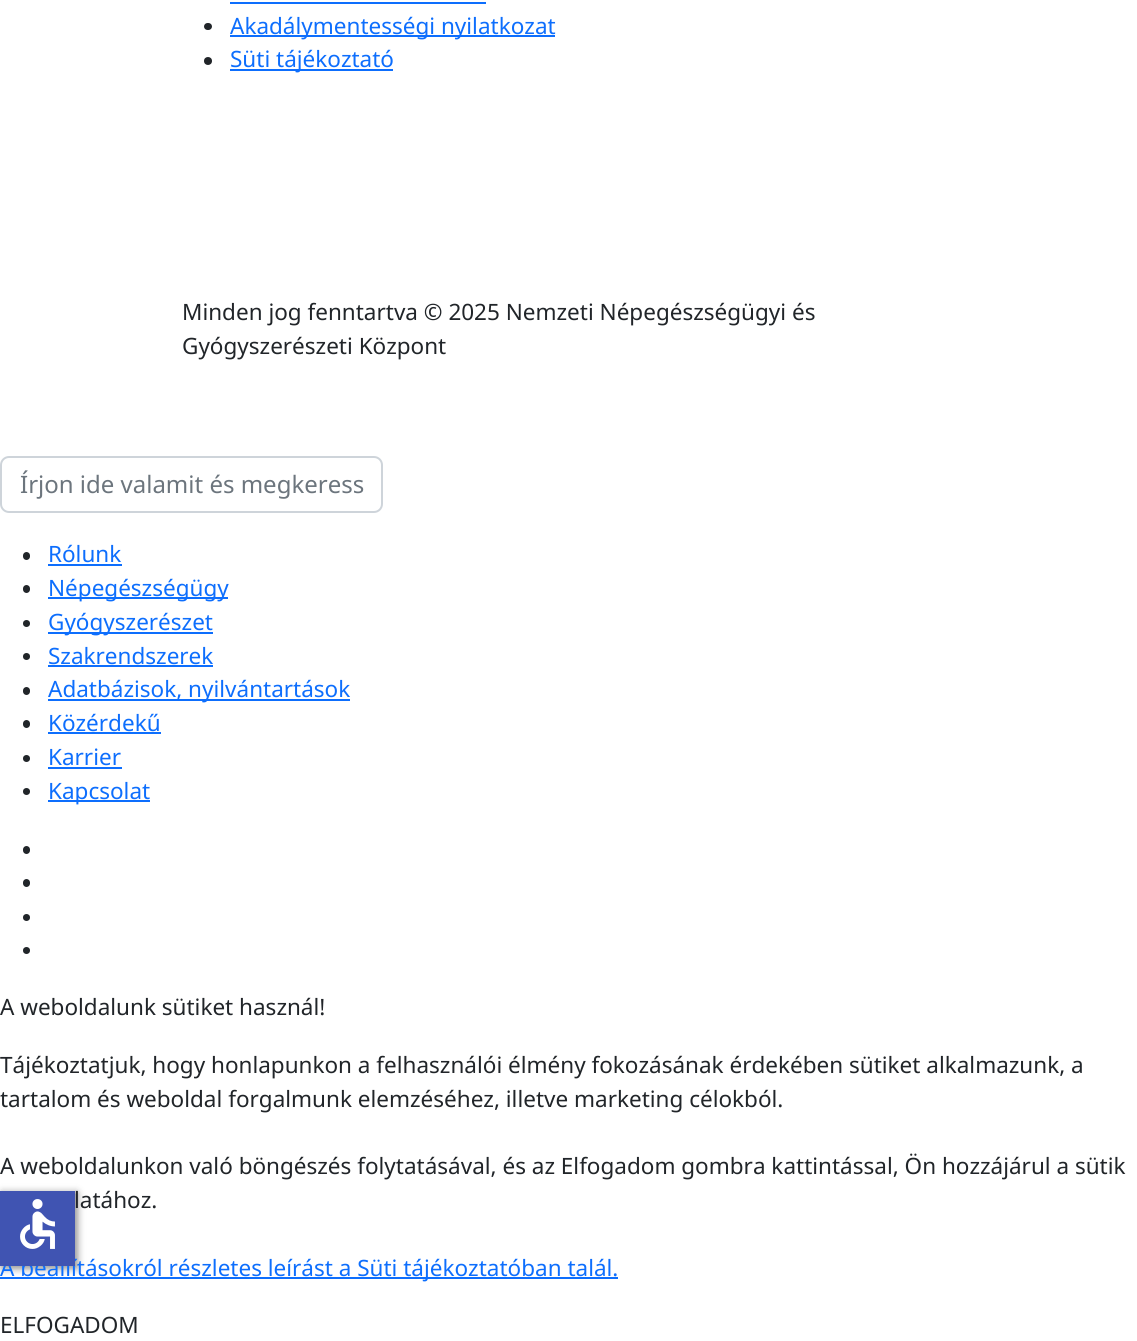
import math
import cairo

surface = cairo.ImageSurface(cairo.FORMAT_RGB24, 1137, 1341)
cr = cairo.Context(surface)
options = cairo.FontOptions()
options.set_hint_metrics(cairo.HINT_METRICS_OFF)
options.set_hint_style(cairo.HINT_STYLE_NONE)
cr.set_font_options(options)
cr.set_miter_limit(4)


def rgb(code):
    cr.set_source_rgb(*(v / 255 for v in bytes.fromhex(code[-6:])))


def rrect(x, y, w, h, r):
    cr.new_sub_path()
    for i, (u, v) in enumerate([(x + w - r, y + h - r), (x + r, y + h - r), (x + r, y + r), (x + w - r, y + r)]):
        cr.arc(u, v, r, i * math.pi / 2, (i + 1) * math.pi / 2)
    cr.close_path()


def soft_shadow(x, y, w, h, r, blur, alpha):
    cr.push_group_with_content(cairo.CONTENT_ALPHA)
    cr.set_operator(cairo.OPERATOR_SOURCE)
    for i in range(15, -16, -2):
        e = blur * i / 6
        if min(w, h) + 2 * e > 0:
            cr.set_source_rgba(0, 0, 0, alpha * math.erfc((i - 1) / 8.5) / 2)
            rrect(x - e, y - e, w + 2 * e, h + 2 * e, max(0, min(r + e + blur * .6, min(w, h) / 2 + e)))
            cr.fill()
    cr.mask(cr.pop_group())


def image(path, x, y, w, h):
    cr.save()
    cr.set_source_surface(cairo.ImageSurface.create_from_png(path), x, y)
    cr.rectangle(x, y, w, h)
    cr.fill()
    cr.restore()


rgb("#ffffff")
cr.paint()
rgb("#0d6efd")
cr.rectangle(230, 2, 256, 2)
cr.fill()
rgb("#212529")
rrect(204, 23, 8, 7, 3.5)
cr.fill()
rgb("#0d6efd")
cr.rectangle(230, 35, 325, 2)
cr.fill()
rgb("#212529")
cr.arc(208, 61, 4, 0, 2 * math.pi)
cr.fill()
rgb("#0d6efd")
cr.rectangle(230, 69, 163, 2)
cr.fill()
rrect(1, 457, 381, 55, 8)
rgb("#ced4da")
cr.stroke()
rgb("#212529")
rrect(23, 552, 7, 8, 3.5)
cr.fill()
rgb("#0d6efd")
cr.rectangle(48, 564, 74, 2)
cr.fill()
rgb("#212529")
rrect(23, 585, 7, 8, 3.5)
cr.fill()
rgb("#0d6efd")
cr.rectangle(48, 597, 180, 2)
cr.fill()
rgb("#212529")
cr.arc(26.5, 623.5, 3.5, 0, 2 * math.pi)
cr.fill()
rgb("#0d6efd")
cr.rectangle(48, 632, 165, 2)
cr.fill()
rgb("#212529")
cr.arc(26.5, 656.5, 3.5, 0, 2 * math.pi)
cr.fill()
rgb("#0d6efd")
cr.rectangle(48, 665, 165, 2)
cr.fill()
rgb("#212529")
rrect(23, 687, 7, 8, 3.5)
cr.fill()
rgb("#0d6efd")
cr.rectangle(48, 699, 302, 2)
cr.fill()
rgb("#212529")
rrect(23, 720, 7, 8, 3.5)
cr.fill()
rgb("#0d6efd")
cr.rectangle(48, 732, 113, 2)
cr.fill()
rgb("#212529")
cr.arc(26.5, 758.5, 3.5, 0, 2 * math.pi)
cr.fill()
rgb("#0d6efd")
cr.rectangle(48, 767, 74, 2)
cr.fill()
rgb("#212529")
cr.arc(26.5, 791.5, 3.5, 0, 2 * math.pi)
cr.fill()
rgb("#0d6efd")
cr.rectangle(48, 800, 102, 2)
cr.fill()
rgb("#212529")
rrect(23, 846, 7, 8, 3.5)
cr.fill()
rrect(23, 879, 7, 8, 3.5)
cr.fill()
cr.arc(26.5, 917.5, 3.5, 0, 2 * math.pi)
cr.fill()
cr.arc(26.5, 950.5, 3.5, 0, 2 * math.pi)
cr.fill()
rgb("#0d6efd")
cr.rectangle(0, 1277, 618, 2)
cr.fill()
rgb("#000000")
soft_shadow(2, 1193, 75, 75, 0, 4, 0.5)
cr.select_font_face("Noto Sans")
cr.set_font_size(22.5)
rgb("#0d6efd")
cr.move_to(230, 34)
cr.show_text("Akadálymentességi nyilatkozat")
cr.move_to(230, 67)
cr.show_text("Süti tájékoztató")
rgb("#212529")
cr.move_to(182, 320)
cr.show_text("Minden jog fenntartva © 2025 Nemzeti Népegészségügyi és")
cr.move_to(182, 354)
cr.show_text("Gyógyszerészeti Központ")
cr.set_font_size(24)
rgb("#6c757d")
cr.move_to(20, 493)
cr.show_text("Írjon ide valamit és megkeress")
cr.set_font_size(22.5)
rgb("#0d6efd")
for x, y, s in [
    (48, 562, "Rólunk"),
    (48, 596, "Népegészségügy"),
    (48, 630, "Gyógyszerészet"),
    (48, 664, "Szakrendszerek"),
    (48, 697, "Adatbázisok, nyilvántartások"),
    (48, 731, "Közérdekű"),
    (48, 765, "Karrier"),
    (48, 799, "Kapcsolat"),
]:
    cr.move_to(x, y)
    cr.show_text(s)
rgb("#212529")
for x, y, s in [
    (0, 1015, "A weboldalunk sütiket használ!"),
    (0, 1073, "Tájékoztatjuk, hogy honlapunkon a felhasználói élmény fokozásának érdekében sütiket alkalmazunk, a"),
    (0, 1107, "tartalom és weboldal forgalmunk elemzéséhez, illetve marketing célokból."),
    (0, 1174, "A weboldalunkon való böngészés folytatásával, és az Elfogadom gombra kattintással, Ön hozzájárul a sütik"),
    (74, 1208, "latához."),
]:
    cr.move_to(x, y)
    cr.show_text(s)
rgb("#0d6efd")
cr.move_to(0, 1276)
cr.show_text("A beállításokról részletes leírást a Süti tájékoztatóban talál.")
rgb("#212529")
cr.move_to(0, 1333)
cr.show_text("ELFOGADOM")
rgb("#4054b2")
cr.rectangle(0, 1191, 75, 75)
cr.fill()
image("img/1.png", 20, 1199, 35, 50)
surface.write_to_png("page.png")
